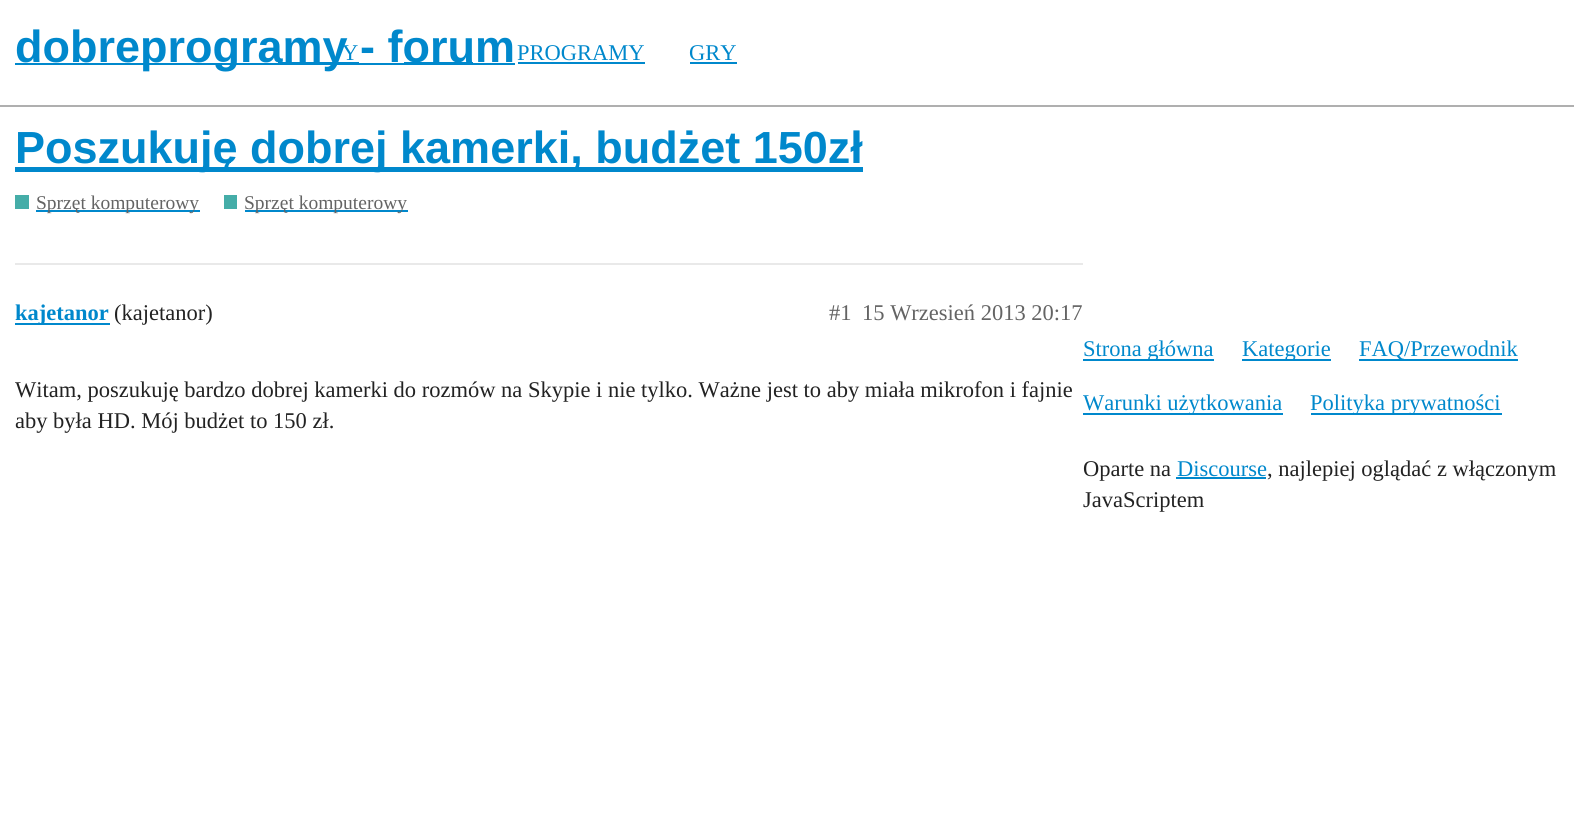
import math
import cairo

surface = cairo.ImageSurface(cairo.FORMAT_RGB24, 1574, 816)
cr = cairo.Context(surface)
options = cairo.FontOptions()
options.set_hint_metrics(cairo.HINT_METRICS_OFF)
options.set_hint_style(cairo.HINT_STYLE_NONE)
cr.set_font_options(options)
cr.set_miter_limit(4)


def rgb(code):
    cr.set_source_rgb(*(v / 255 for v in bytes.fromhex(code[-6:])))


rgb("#ffffff")
cr.paint()
for x, y, w, h, color in [
    (0, 105, 1574, 2, "#afafaf"),
    (15, 63, 500, 2, "#0088cc"),
    (278, 62, 81, 1, "#0088cc"),
    (518, 62, 127, 2, "#0088cc"),
    (690, 62, 47, 2, "#0088cc"),
    (404, 62, 69, 1, "#0088cc"),
    (15, 167, 848, 5, "#0088cc"),
    (15, 195, 14, 14, "#45ada8"),
    (36, 210, 164, 2, "#0088cc"),
    (224, 195, 13, 14, "#45ada8"),
    (245, 210, 163, 2, "#0088cc"),
    (15, 263, 1068, 2, "#e9e9e9"),
    (15, 323, 95, 2, "#0088cc"),
    (1083, 359, 131, 2, "#0088cc"),
    (1242, 359, 89, 2, "#0088cc"),
    (1359, 359, 159, 2, "#0088cc"),
    (1083, 413, 200, 2, "#0088cc"),
    (1311, 413, 191, 2, "#0088cc"),
    (1176, 477, 90, 2, "#0088cc"),
]:
    rgb(color)
    cr.rectangle(x, y, w, h)
    cr.fill()
cr.select_font_face("Liberation Sans", cairo.FONT_SLANT_NORMAL, cairo.FONT_WEIGHT_BOLD)
cr.set_font_size(45)
cr.move_to(15, 62)
cr.show_text("dobreprogramy - forum")
cr.select_font_face("Liberation Serif")
cr.set_font_size(22.5)
for x, y, s in [
    (342, 60, "Y"),
    (517, 60, "PROGRAMY"),
    (689, 60, "GRY"),
]:
    cr.move_to(x, y)
    cr.show_text(s)
cr.select_font_face("Liberation Sans", cairo.FONT_SLANT_NORMAL, cairo.FONT_WEIGHT_BOLD)
cr.set_font_size(45)
cr.move_to(15, 163)
cr.show_text("Poszukuję dobrej kamerki, budżet 150zł")
cr.select_font_face("Liberation Serif")
cr.set_font_size(19.5)
rgb("#646464")
cr.move_to(36, 209)
cr.show_text("Sprzęt komputerowy")
cr.move_to(244, 209)
cr.show_text("Sprzęt komputerowy")
cr.select_font_face("Liberation Serif", cairo.FONT_SLANT_NORMAL, cairo.FONT_WEIGHT_BOLD)
cr.set_font_size(22.5)
rgb("#0088cc")
cr.move_to(15, 320)
cr.show_text("kajetanor")
cr.select_font_face("Liberation Serif")
rgb("#222222")
cr.move_to(114, 320)
cr.show_text("(kajetanor)")
rgb("#646464")
cr.move_to(829, 320)
cr.show_text("#1")
cr.move_to(862, 320)
cr.show_text("15 Wrzesień 2013 20:17")
rgb("#222222")
cr.move_to(15, 397)
cr.show_text("Witam, poszukuję bardzo dobrej kamerki do rozmów na Skypie i nie tylko. Ważne jest to aby miała mikrofon i fajnie")
cr.move_to(15, 428)
cr.show_text("aby była HD. Mój budżet to 150 zł.")
rgb("#0088cc")
for x, y, s in [
    (1083, 356, "Strona główna"),
    (1242, 356, "Kategorie"),
    (1359, 356, "FAQ/Przewodnik"),
    (1083, 410, "Warunki użytkowania"),
    (1310, 410, "Polityka prywatności"),
]:
    cr.move_to(x, y)
    cr.show_text(s)
rgb("#222222")
cr.move_to(1083, 476)
cr.show_text("Oparte na")
rgb("#0088cc")
cr.move_to(1177, 476)
cr.show_text("Discourse")
rgb("#222222")
cr.move_to(1267, 476)
cr.show_text(", najlepiej oglądać z włączonym")
cr.move_to(1083, 507)
cr.show_text("JavaScriptem")
surface.write_to_png("page.png")
